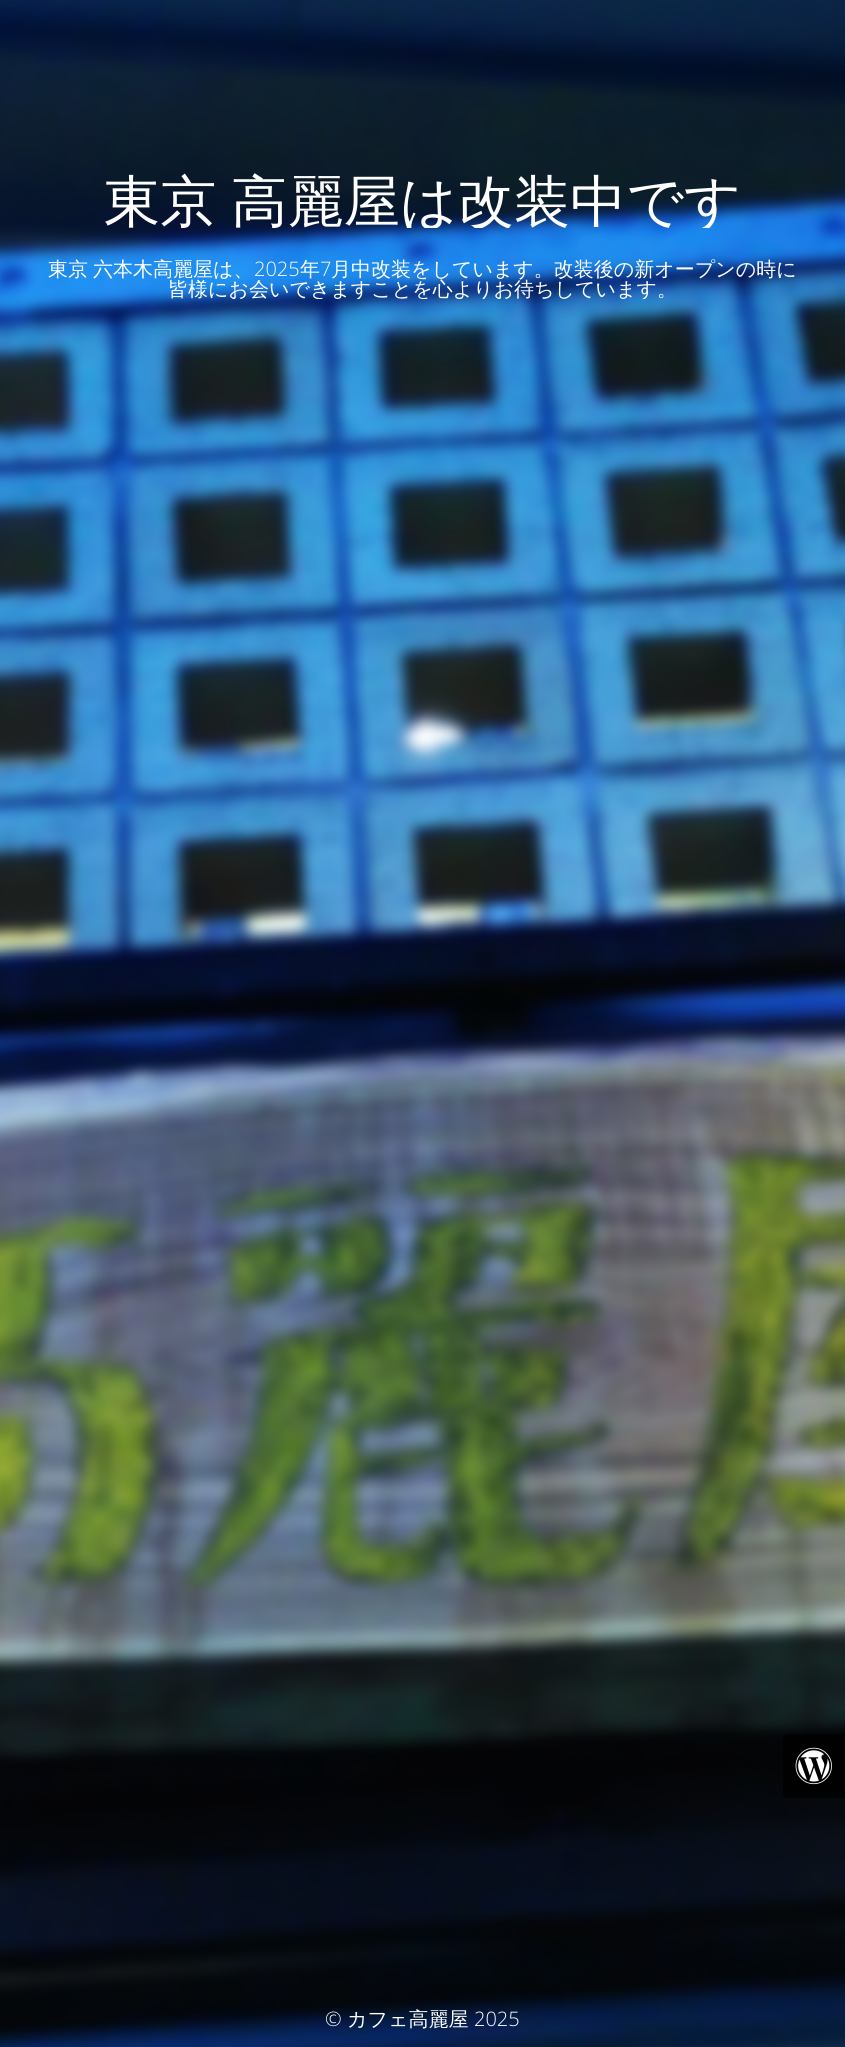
import math
import cairo

surface = cairo.ImageSurface(cairo.FORMAT_RGB24, 845, 2047)
cr = cairo.Context(surface)
options = cairo.FontOptions()
options.set_hint_metrics(cairo.HINT_METRICS_OFF)
options.set_hint_style(cairo.HINT_STYLE_NONE)
cr.set_font_options(options)
cr.set_miter_limit(4)


def rgb(code):
    cr.set_source_rgb(*(v / 255 for v in bytes.fromhex(code[-6:])))


def tracked(x, y, s, letter, word):
    cr.move_to(x, y)
    for ch in s:
        cr.show_text(ch)
        cr.rel_move_to(letter + word * (ch == ' '), 0)


def image(path, x, y, w, h):
    cr.save()
    cr.set_source_surface(cairo.ImageSurface.create_from_png(path), x, y)
    cr.rectangle(x, y, w, h)
    cr.fill()
    cr.restore()


rgb("#ffffff")
cr.paint()
image("img/1.png", 0, 0, 845, 2047)
cr.set_source_rgba(0, 0, 0, 0.8)
cr.new_path()
cr.move_to(788, 1734)
cr.line_to(845, 1734)
cr.line_to(845, 1798)
cr.line_to(788, 1798)
cr.curve_to(785, 1798, 783, 1796, 783, 1793)
cr.line_to(783, 1739)
cr.curve_to(783, 1736, 785, 1734, 788, 1734)
cr.close_path()
cr.fill()
image("img/2.png", 795, 1747, 37, 38)
cr.save()
cr.rectangle(48, 171, 750, 57)
cr.clip()
cr.select_font_face("WenQuanYi Zen Hei Medium")
cr.set_font_size(56.25)
rgb("#ffffff")
tracked(104, 221, "東京 高麗屋は改装中です", 0, -2)
cr.restore()
cr.select_font_face("WenQuanYi Zen Hei Medium")
cr.set_font_size(20)
rgb("#ffffff")
tracked(48, 276, "東京 六本木高麗屋は、", 0, -1)
cr.select_font_face("Open Sans Light")
cr.move_to(254, 276)
cr.show_text("2025")
cr.select_font_face("WenQuanYi Zen Hei Medium")
cr.move_to(300, 276)
cr.show_text("年")
cr.select_font_face("Open Sans Light")
cr.move_to(320, 276)
cr.show_text("7")
cr.select_font_face("WenQuanYi Zen Hei Medium")
cr.move_to(331, 276)
cr.show_text("月中改装をしています。改装後の新オープンの時に")
cr.save()
cr.rectangle(48, 259, 750, 40)
cr.clip()
cr.move_to(168, 296)
cr.show_text("皆様にお会いできますことを心よりお待ちしています。")
cr.restore()
cr.select_font_face("Open Sans Light")
cr.move_to(325, 2026)
cr.show_text("©")
cr.select_font_face("WenQuanYi Zen Hei Medium")
cr.move_to(347, 2026)
cr.show_text("カフェ高麗屋")
cr.select_font_face("Open Sans Light")
cr.move_to(474, 2026)
cr.show_text("2025")
surface.write_to_png("page.png")
